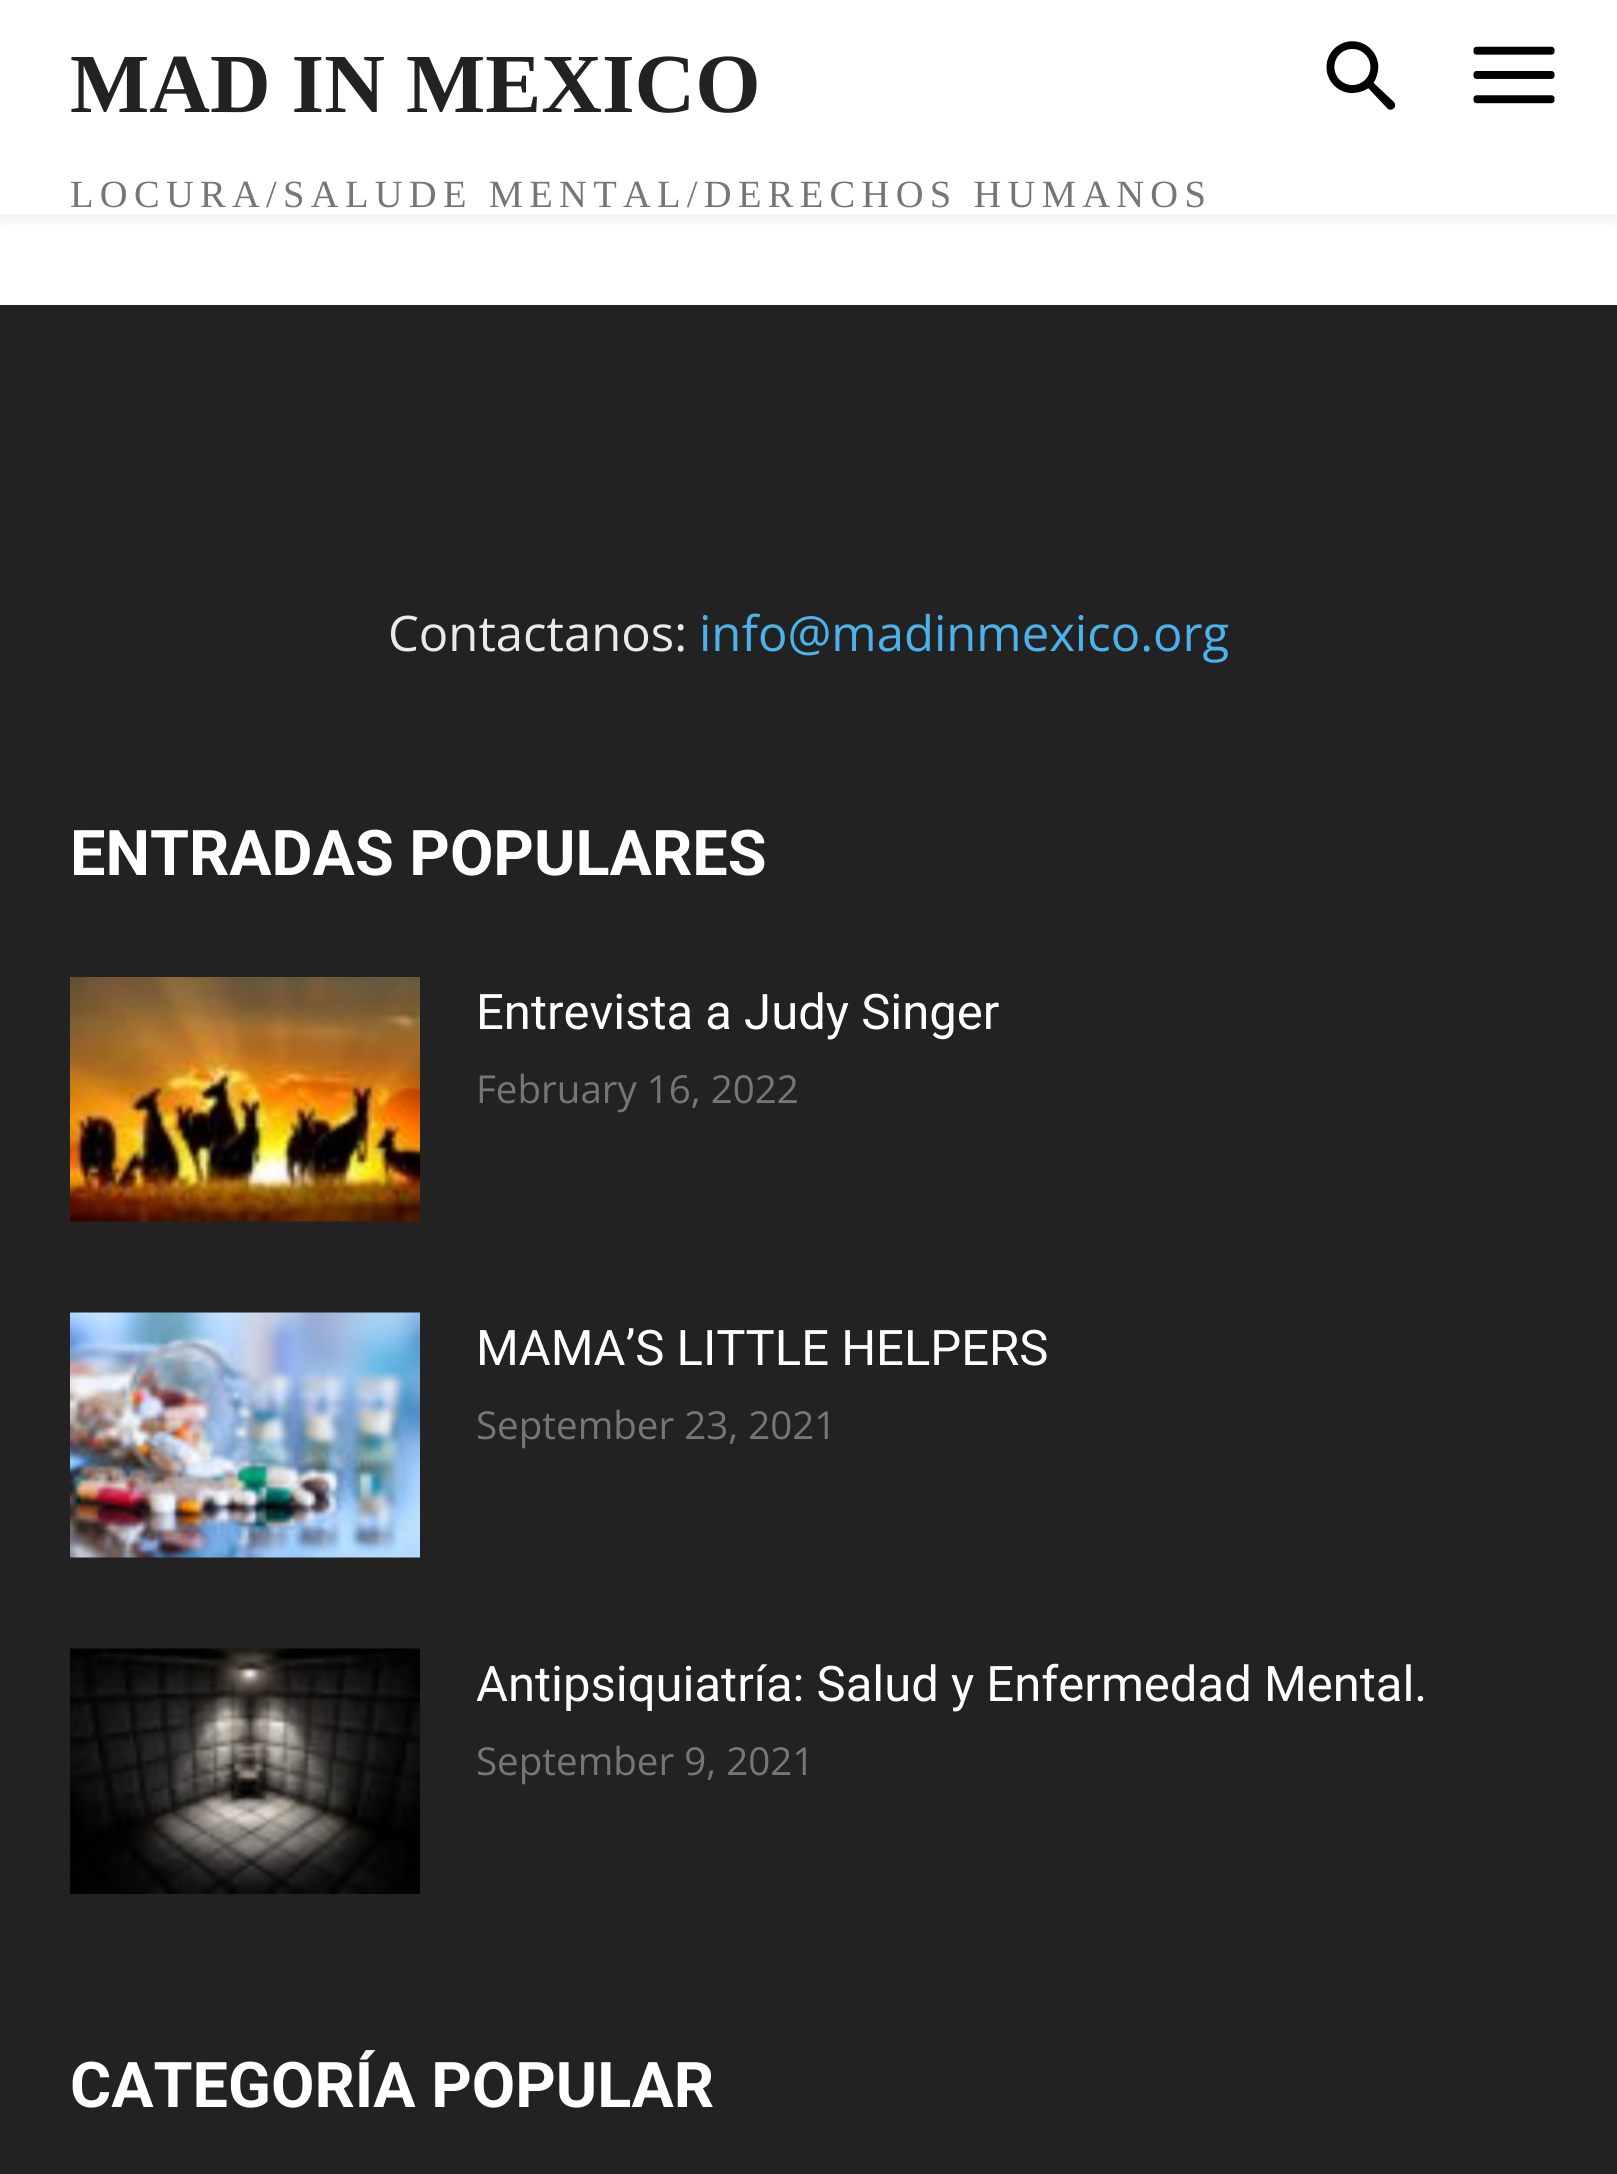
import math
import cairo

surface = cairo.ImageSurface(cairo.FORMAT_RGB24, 1617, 2174)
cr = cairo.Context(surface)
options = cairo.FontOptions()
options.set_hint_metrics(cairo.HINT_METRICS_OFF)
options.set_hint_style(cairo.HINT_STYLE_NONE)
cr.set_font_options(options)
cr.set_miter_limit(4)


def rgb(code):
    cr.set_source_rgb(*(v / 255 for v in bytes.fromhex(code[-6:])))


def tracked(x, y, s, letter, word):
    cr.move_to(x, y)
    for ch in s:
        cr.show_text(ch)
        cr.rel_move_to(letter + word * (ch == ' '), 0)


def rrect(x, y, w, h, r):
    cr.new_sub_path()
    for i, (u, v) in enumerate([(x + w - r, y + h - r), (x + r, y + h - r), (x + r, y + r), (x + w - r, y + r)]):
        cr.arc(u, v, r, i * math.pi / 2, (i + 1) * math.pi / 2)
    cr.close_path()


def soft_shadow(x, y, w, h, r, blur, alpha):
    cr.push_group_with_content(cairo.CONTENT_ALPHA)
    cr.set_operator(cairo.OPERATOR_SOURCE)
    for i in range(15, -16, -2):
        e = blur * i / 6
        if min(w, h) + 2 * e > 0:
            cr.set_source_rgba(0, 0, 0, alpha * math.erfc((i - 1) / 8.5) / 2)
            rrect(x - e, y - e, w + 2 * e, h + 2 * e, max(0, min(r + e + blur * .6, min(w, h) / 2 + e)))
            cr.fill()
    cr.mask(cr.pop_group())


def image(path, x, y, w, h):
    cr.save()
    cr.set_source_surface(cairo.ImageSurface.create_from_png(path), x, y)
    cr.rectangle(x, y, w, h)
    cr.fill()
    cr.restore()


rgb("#ffffff")
cr.paint()
image("img/1.png", 1326, 41, 70, 69)
image("img/2.png", 1473, 46, 82, 58)
cr.save()
cr.set_fill_rule(cairo.FILL_RULE_EVEN_ODD)
cr.new_path()
cr.move_to(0, 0)
cr.line_to(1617, 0)
cr.line_to(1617, 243)
cr.line_to(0, 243)
cr.close_path()
cr.move_to(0, 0)
cr.line_to(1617, 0)
cr.line_to(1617, 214)
cr.line_to(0, 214)
cr.close_path()
cr.clip()
rgb("#000000")
soft_shadow(0, 7, 1617, 214, 0, 7, 0.06)
cr.restore()
rgb("#222222")
cr.rectangle(0, 305, 1617, 1869)
cr.fill()
image("img/3.png", 70, 977, 350, 245)
image("img/4.png", 70, 1312, 350, 246)
image("img/5.png", 70, 1648, 350, 246)
cr.select_font_face("Liberation Serif", cairo.FONT_SLANT_NORMAL, cairo.FONT_WEIGHT_BOLD)
cr.set_font_size(84)
cr.move_to(70, 112)
cr.show_text("MAD IN MEXICO")
cr.select_font_face("Liberation Serif")
cr.set_font_size(38.5)
rgb("#767676")
tracked(70, 207, "LOCURA/SALUDE MENTAL/DERECHOS HUMANOS", 6.3, 0)
cr.select_font_face("Open Sans")
cr.set_font_size(49)
rgb("#eaeaea")
cr.move_to(388, 651)
cr.show_text("Contactanos:")
rgb("#4db2ec")
cr.move_to(699, 651)
cr.show_text("info@madinmexico.org")
cr.select_font_face("Roboto", cairo.FONT_SLANT_NORMAL, cairo.FONT_WEIGHT_BOLD)
cr.set_font_size(63)
rgb("#ffffff")
cr.move_to(70, 875)
cr.show_text("ENTRADAS POPULARES")
cr.select_font_face("Roboto")
cr.set_font_size(49)
cr.move_to(476, 1029)
cr.show_text("Entrevista a Judy Singer")
cr.select_font_face("Open Sans")
cr.set_font_size(38.5)
rgb("#767676")
cr.move_to(476, 1103)
cr.show_text("February 16, 2022")
cr.select_font_face("Roboto")
cr.set_font_size(49)
rgb("#ffffff")
cr.move_to(476, 1365)
cr.show_text("MAMA’S LITTLE HELPERS")
cr.select_font_face("Open Sans")
cr.set_font_size(38.5)
rgb("#767676")
cr.move_to(476, 1439)
cr.show_text("September 23, 2021")
cr.select_font_face("Roboto")
cr.set_font_size(49)
rgb("#ffffff")
cr.move_to(476, 1701)
cr.show_text("Antipsiquiatría: Salud y Enfermedad Mental.")
cr.select_font_face("Open Sans")
cr.set_font_size(38.5)
rgb("#767676")
cr.move_to(476, 1775)
cr.show_text("September 9, 2021")
cr.select_font_face("Roboto", cairo.FONT_SLANT_NORMAL, cairo.FONT_WEIGHT_BOLD)
cr.set_font_size(63)
rgb("#ffffff")
cr.move_to(70, 2107)
cr.show_text("CATEGORÍA POPULAR")
surface.write_to_png("page.png")
